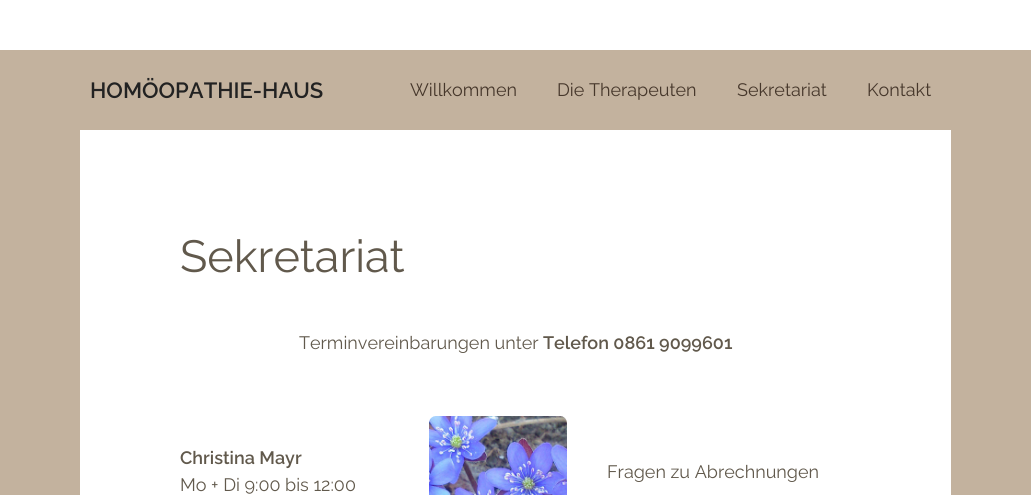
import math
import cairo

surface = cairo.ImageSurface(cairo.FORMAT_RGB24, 1031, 495)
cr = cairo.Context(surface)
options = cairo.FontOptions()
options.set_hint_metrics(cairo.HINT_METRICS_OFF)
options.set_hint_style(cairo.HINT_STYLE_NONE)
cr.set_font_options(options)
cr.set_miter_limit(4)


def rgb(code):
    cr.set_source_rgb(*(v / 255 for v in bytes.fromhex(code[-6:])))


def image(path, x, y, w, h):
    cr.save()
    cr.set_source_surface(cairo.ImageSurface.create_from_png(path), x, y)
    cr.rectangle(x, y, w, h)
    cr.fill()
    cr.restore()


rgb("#ffffff")
cr.paint()
for x, y, w, h, color in [
    (951, 50, 80, 445, "#c3b29e"),
    (0, 50, 80, 445, "#c3b29e"),
    (80, 50, 871, 80, "#c3b29e"),
]:
    rgb(color)
    cr.rectangle(x, y, w, h)
    cr.fill()
image("img/1.png", 429, 416, 138, 79)
cr.select_font_face("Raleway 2 Thin")
cr.set_font_size(22)
rgb("#222222")
cr.move_to(90, 98)
cr.show_text("HOMÖOPATHIE-HAUS")
cr.select_font_face("Raleway Thin")
cr.set_font_size(18)
rgb("#46372b")
for x, y, s in [
    (410, 96, "Willkommen"),
    (557, 96, "Die Therapeuten"),
    (737, 96, "Sekretariat"),
    (867, 96, "Kontakt"),
]:
    cr.move_to(x, y)
    cr.show_text(s)
cr.set_font_size(45)
rgb("#61594c")
cr.move_to(180, 272)
cr.show_text("Sekretariat")
cr.set_font_size(18)
cr.move_to(299, 349)
cr.show_text("Terminvereinbarungen unter")
cr.select_font_face("Raleway 2 Thin")
cr.move_to(543, 349)
cr.show_text("Telefon 0861 9099601")
cr.move_to(180, 464)
cr.show_text("Christina Mayr")
cr.select_font_face("Raleway Thin")
cr.move_to(180, 491)
cr.show_text("Mo + Di 9:00 bis 12:00")
cr.move_to(607, 478)
cr.show_text("Fragen zu Abrechnungen")
surface.write_to_png("page.png")
